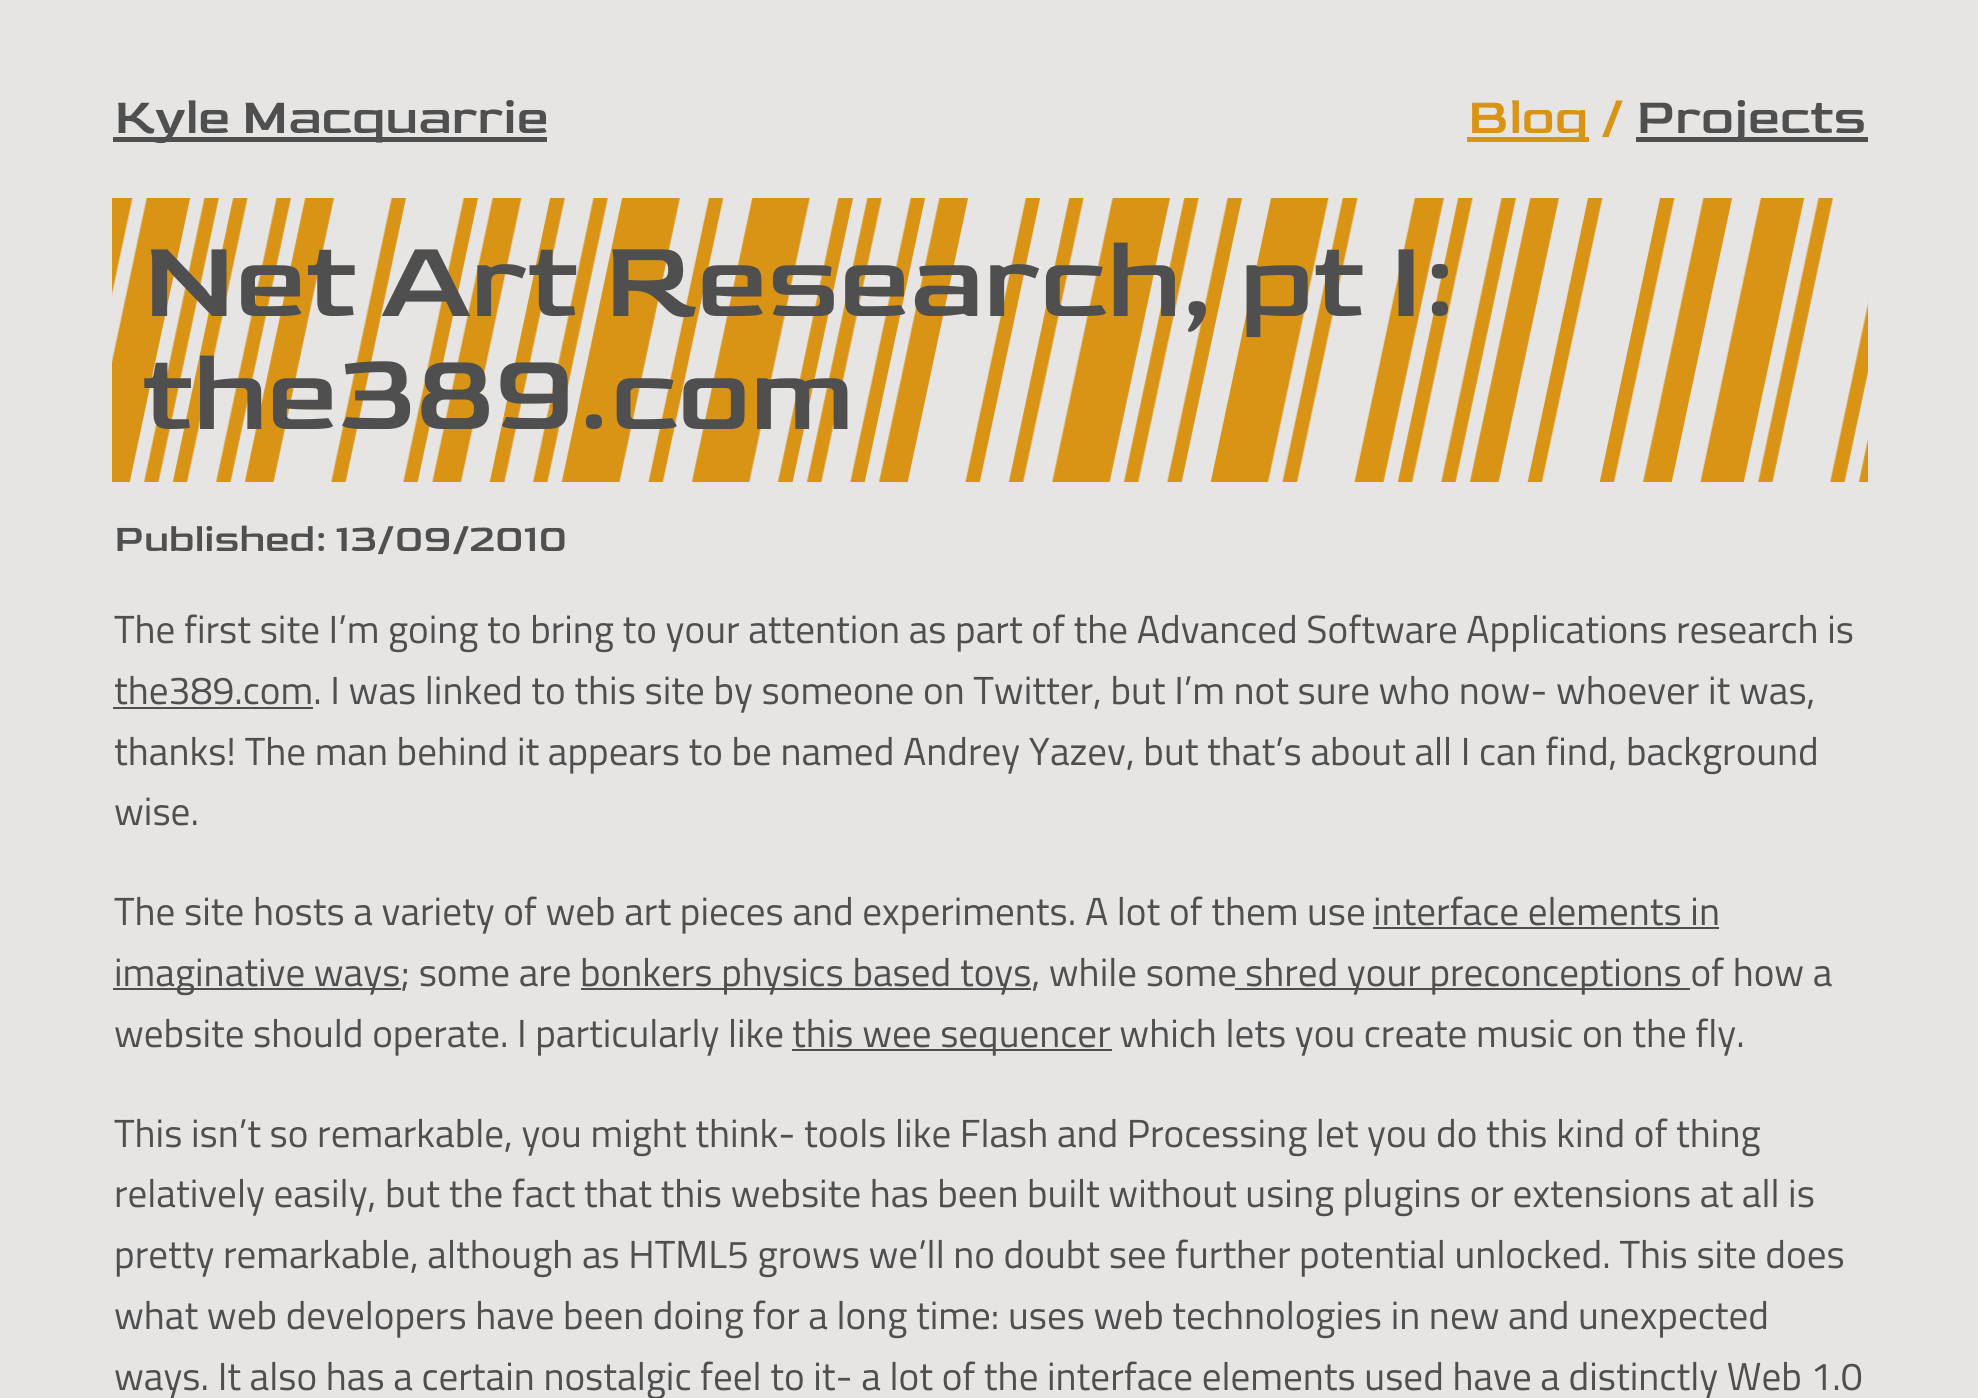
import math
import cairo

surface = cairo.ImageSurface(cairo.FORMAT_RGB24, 1978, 1398)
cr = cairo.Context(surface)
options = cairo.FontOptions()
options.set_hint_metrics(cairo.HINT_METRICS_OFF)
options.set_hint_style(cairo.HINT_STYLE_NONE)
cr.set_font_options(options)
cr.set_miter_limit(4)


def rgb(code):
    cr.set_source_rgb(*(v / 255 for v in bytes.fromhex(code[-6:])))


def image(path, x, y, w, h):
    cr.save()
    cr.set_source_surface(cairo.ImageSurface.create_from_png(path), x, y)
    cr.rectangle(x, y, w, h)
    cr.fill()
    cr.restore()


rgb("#e6e5e4")
cr.paint()
for x, y, w, h, color in [
    (113, 137, 434, 5, "#4f4f4f"),
    (1467, 137, 122, 5, "#d99416"),
    (1636, 137, 232, 5, "#4f4f4f"),
]:
    rgb(color)
    cr.rectangle(x, y, w, h)
    cr.fill()
image("img/1.png", 112, 198, 1756, 284)
for x, y, w, h, color in [
    (113, 707, 200, 2, "#4f4f4f"),
    (1373, 927, 346, 2, "#4f4f4f"),
    (113, 988, 288, 2, "#4f4f4f"),
    (581, 988, 450, 2, "#4f4f4f"),
    (1235, 988, 455, 2, "#4f4f4f"),
    (792, 1049, 320, 2, "#4f4f4f"),
]:
    rgb(color)
    cr.rectangle(x, y, w, h)
    cr.fill()
cr.select_font_face("Goldman")
cr.set_font_size(51.4)
cr.move_to(114, 133)
cr.show_text("Kyle Macquarrie")
rgb("#d99416")
cr.move_to(1468, 133)
cr.show_text("Blog")
cr.move_to(1601, 133)
cr.show_text("/")
rgb("#4f4f4f")
cr.move_to(1636, 133)
cr.show_text("Projects")
cr.set_font_size(113.25)
cr.move_to(142, 316)
cr.show_text("Net Art Research, pt I:")
cr.move_to(142, 429)
cr.show_text("the389.com")
cr.set_font_size(39.15)
cr.move_to(114, 551)
cr.show_text("Published: 13/09/2010")
cr.select_font_face("Titillium Web")
for x, y, s in [
    (114, 643, "The first site I’m going to bring to your attention as part of the Advanced Software Applications research is"),
    (114, 704, "the389.com. I was linked to this site by someone on Twitter, but I’m not sure who now- whoever it was,"),
    (114, 765, "thanks! The man behind it appears to be named Andrey Yazev, but that’s about all I can find, background"),
    (114, 825, "wise."),
    (114, 925, "The site hosts a variety of web art pieces and experiments. A lot of them use"),
    (1373, 925, "interface elements in"),
    (114, 986, "imaginative ways; some are"),
    (580, 986, "bonkers physics based toys, while some"),
    (1245, 986, "shred your preconceptions of how a"),
    (114, 1047, "website should operate. I particularly like"),
    (792, 1047, "this wee sequencer which lets you create music on the fly."),
    (114, 1147, "This isn’t so remarkable, you might think- tools like Flash and Processing let you do this kind of thing"),
    (114, 1207, "relatively easily, but the fact that this website has been built without using plugins or extensions at all is"),
    (114, 1268, "pretty remarkable, although as HTML5 grows we’ll no doubt see further potential unlocked. This site does"),
    (114, 1329, "what web developers have been doing for a long time: uses web technologies in new and unexpected"),
    (114, 1390, "ways. It also has a certain nostalgic feel to it- a lot of the interface elements used have a distinctly Web 1.0"),
]:
    cr.move_to(x, y)
    cr.show_text(s)
surface.write_to_png("page.png")
